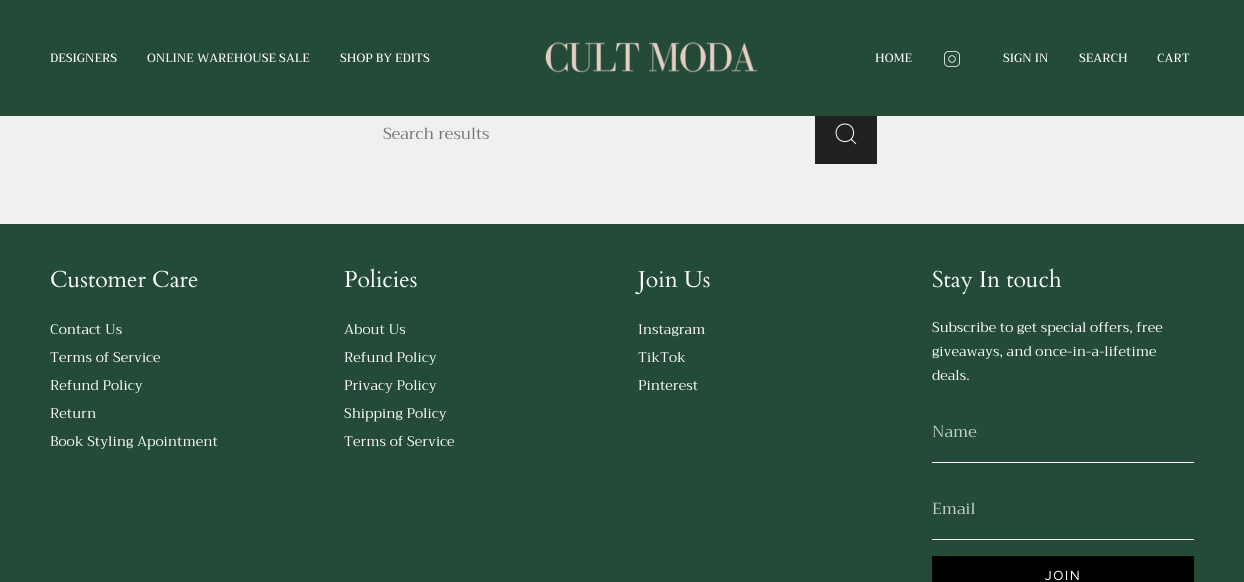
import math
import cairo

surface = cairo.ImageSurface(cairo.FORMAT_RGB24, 1244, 582)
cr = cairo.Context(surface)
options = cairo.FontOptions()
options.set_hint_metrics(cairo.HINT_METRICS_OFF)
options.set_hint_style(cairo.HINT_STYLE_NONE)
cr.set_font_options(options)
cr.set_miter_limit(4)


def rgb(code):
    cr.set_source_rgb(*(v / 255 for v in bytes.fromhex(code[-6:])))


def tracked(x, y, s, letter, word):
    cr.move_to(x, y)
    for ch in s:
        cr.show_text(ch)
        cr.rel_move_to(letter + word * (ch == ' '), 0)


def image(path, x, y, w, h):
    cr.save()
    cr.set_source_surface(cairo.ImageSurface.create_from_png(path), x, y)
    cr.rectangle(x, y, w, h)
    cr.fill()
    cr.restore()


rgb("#f0f0f0")
cr.paint()
rgb("#244b37")
cr.rectangle(0, 0, 1244, 116)
cr.fill()
image("img/1.png", 545, 42, 213, 31)
image("img/2.png", 944, 51, 16, 16)
rgb("#212121")
cr.rectangle(815, 116, 62, 48)
cr.fill()
cr.new_path()
cr.move_to(845, 124)
cr.curve_to(856.5, 124, 856.5, 142, 844.5, 141.5)
cr.curve_to(833, 141, 833.5, 124, 845, 124)
cr.close_path()
cr.move_to(851, 139)
cr.line_to(856, 144)
rgb("#ffffff")
cr.set_line_width(1)
cr.stroke()
for x, y, w, h, color in [
    (0, 224, 1244, 358, "#244b37"),
    (932, 462, 262, 1, "#ffffff"),
    (932, 539, 262, 1, "#ffffff"),
    (932, 556, 262, 26, "#000000"),
]:
    rgb(color)
    cr.rectangle(x, y, w, h)
    cr.fill()
cr.select_font_face("Trirong Medium")
cr.set_font_size(12)
rgb("#ffffff")
for x, y, s in [
    (50, 62, "DESIGNERS"),
    (147, 62, "ONLINE WAREHOUSE SALE"),
    (340, 62, "SHOP BY EDITS"),
    (875, 62, "HOME"),
    (1003, 62, "SIGN IN"),
    (1079, 62, "SEARCH"),
    (1157, 62, "CART"),
]:
    cr.move_to(x, y)
    cr.show_text(s)
cr.select_font_face("Trirong")
cr.set_font_size(16)
rgb("#757575")
cr.move_to(383, 139)
cr.show_text("Search results")
cr.select_font_face("Cardo")
cr.set_font_size(23)
rgb("#ffffff")
cr.move_to(50, 287)
cr.show_text("Customer Care")
cr.select_font_face("Trirong")
cr.set_font_size(14)
for x, y, s in [
    (50, 334, "Contact Us"),
    (50, 362, "Terms of Service"),
    (50, 390, "Refund Policy"),
    (50, 418, "Return"),
    (50, 446, "Book Styling Apointment"),
]:
    cr.move_to(x, y)
    cr.show_text(s)
cr.select_font_face("Cardo")
cr.set_font_size(23)
cr.move_to(344, 287)
cr.show_text("Policies")
cr.select_font_face("Trirong")
cr.set_font_size(14)
for x, y, s in [
    (344, 334, "About Us"),
    (344, 362, "Refund Policy"),
    (344, 390, "Privacy Policy"),
    (344, 418, "Shipping Policy"),
    (344, 446, "Terms of Service"),
]:
    cr.move_to(x, y)
    cr.show_text(s)
cr.select_font_face("Cardo")
cr.set_font_size(23)
cr.move_to(638, 287)
cr.show_text("Join Us")
cr.select_font_face("Trirong")
cr.set_font_size(14)
for x, y, s in [
    (638, 334, "Instagram"),
    (638, 362, "TikTok"),
    (638, 390, "Pinterest"),
]:
    cr.move_to(x, y)
    cr.show_text(s)
cr.select_font_face("Cardo")
cr.set_font_size(23)
cr.move_to(932, 287)
cr.show_text("Stay In touch")
cr.select_font_face("Trirong")
cr.set_font_size(14)
for x, y, s in [
    (932, 332, "Subscribe to get special offers, free"),
    (932, 356, "giveaways, and once-in-a-lifetime"),
    (932, 380, "deals."),
]:
    cr.move_to(x, y)
    cr.show_text(s)
cr.set_font_size(16)
rgb("#c8d2cd")
cr.move_to(932, 437)
cr.show_text("Name")
cr.move_to(932, 514)
cr.show_text("Email")
cr.select_font_face("Figtree")
cr.set_font_size(13)
rgb("#ffffff")
tracked(1045, 580, "JOIN", 1.5, 0)
surface.write_to_png("page.png")
